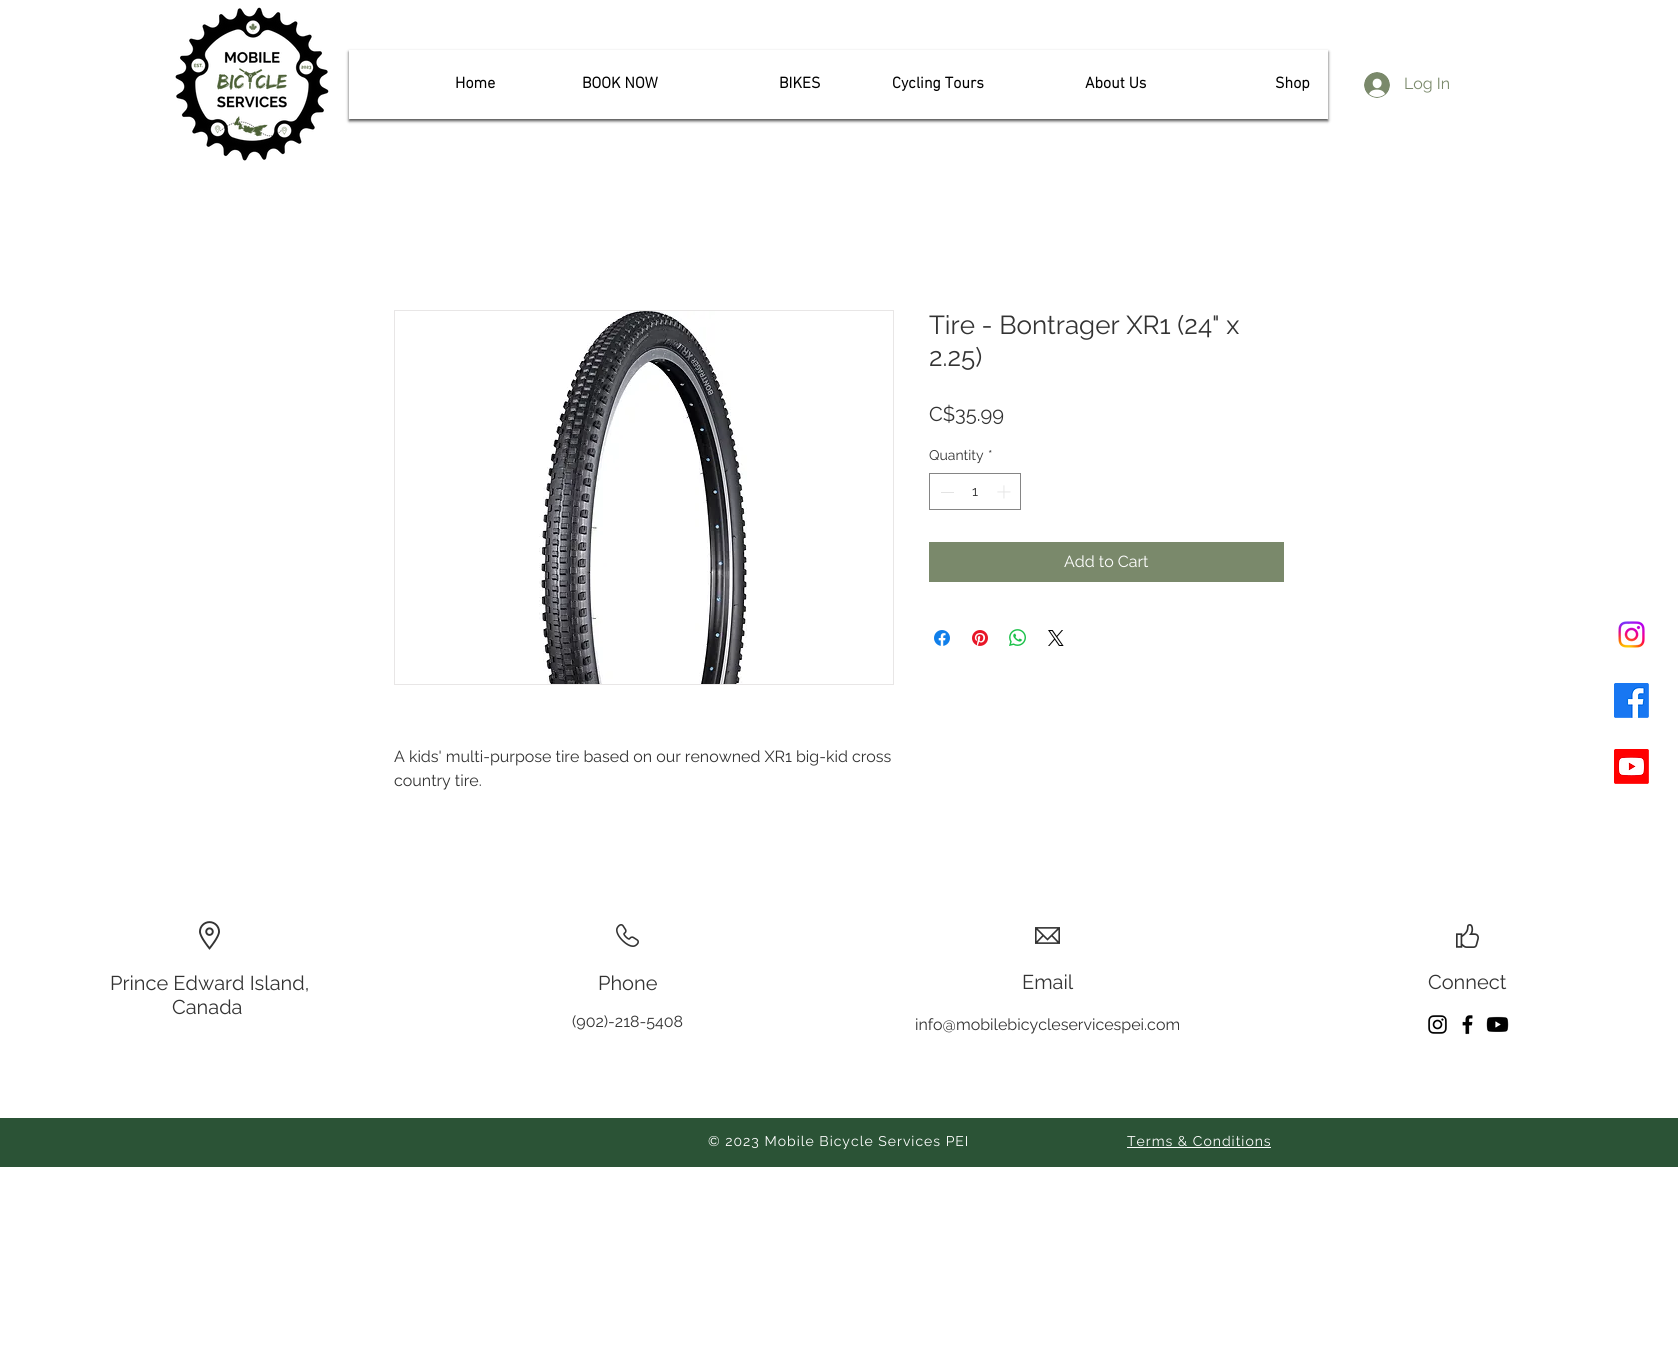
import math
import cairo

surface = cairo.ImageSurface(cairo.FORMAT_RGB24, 1678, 1352)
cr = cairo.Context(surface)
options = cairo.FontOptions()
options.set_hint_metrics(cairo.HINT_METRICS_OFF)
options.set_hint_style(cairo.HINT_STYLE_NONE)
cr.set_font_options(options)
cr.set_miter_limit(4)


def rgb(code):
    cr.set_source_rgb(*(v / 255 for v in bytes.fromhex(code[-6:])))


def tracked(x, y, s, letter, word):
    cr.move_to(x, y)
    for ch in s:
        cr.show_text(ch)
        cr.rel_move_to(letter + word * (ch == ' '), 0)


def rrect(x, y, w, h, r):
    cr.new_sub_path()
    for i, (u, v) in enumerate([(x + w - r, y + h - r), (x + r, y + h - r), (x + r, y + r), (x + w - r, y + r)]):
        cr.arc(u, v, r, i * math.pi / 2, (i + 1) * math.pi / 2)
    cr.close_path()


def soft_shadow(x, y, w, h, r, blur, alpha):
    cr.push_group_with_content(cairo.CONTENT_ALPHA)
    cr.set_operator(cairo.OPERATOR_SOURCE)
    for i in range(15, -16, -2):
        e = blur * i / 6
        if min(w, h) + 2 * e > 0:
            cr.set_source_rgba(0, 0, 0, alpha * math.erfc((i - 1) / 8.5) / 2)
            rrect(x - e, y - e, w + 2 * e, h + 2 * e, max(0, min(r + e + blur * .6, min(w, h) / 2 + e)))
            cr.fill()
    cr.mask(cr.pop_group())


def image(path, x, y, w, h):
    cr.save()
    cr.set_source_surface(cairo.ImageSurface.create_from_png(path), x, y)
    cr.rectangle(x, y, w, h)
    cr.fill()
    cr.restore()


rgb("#ffffff")
cr.paint()
image("img/1.png", 175, 7, 154, 154)
cr.save()
cr.set_fill_rule(cairo.FILL_RULE_EVEN_ODD)
cr.new_path()
cr.move_to(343, 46)
cr.line_to(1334, 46)
cr.line_to(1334, 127)
cr.line_to(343, 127)
cr.close_path()
cr.move_to(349, 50)
cr.line_to(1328, 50)
cr.line_to(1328, 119)
cr.line_to(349, 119)
cr.close_path()
cr.clip()
rgb("#000000")
soft_shadow(349, 52, 979, 69, 0, 1.5, 0.7)
cr.restore()
image("img/2.png", 1364, 72, 26, 26)
cr.rectangle(929.5, 473.5, 91, 36)
rgb("#858585")
cr.set_line_width(1)
cr.stroke()
rgb("#e3e3e3")
cr.rectangle(941, 492, 13, 1)
cr.fill()
image("img/3.png", 997, 485, 14, 14)
rgb("#7a896b")
cr.rectangle(929, 542, 355, 40)
cr.fill()
image("img/4.png", 934, 630, 16, 16)
image("img/5.png", 972, 630, 16, 16)
image("img/6.png", 1009, 629, 17, 17)
image("img/7.png", 1048, 630, 16, 16)
cr.rectangle(394.5, 310.5, 499, 374)
rgb("#e8e6e6")
cr.stroke()
image("img/8.png", 539, 311, 208, 373)
image("img/9.png", 1618, 621, 27, 27)
image("img/10.png", 1614, 683, 35, 35)
image("img/11.png", 1614, 749, 35, 35)
image("img/12.png", 199, 921, 21, 29)
image("img/13.png", 616, 924, 23, 23)
image("img/14.png", 1035, 927, 25, 17)
image("img/15.png", 1456, 924, 23, 24)
image("img/16.png", 1428, 1015, 19, 19)
image("img/17.png", 1462, 1015, 11, 20)
image("img/18.png", 1486, 1016, 23, 16)
rgb("#2b5336")
cr.rectangle(0, 1118, 1678, 49)
cr.fill()
rgb("#ffffff")
cr.rectangle(1127, 1147, 144, 1)
cr.fill()
cr.select_font_face("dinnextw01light", cairo.FONT_SLANT_NORMAL, cairo.FONT_WEIGHT_BOLD)
cr.set_font_size(16)
rgb("#000000")
for x, y, s in [
    (455, 88, "Home"),
    (582, 88, "BOOK NOW"),
    (779, 88, "BIKES"),
    (892, 88, "Cycling Tours"),
    (1085, 88, "About Us"),
    (1275, 88, "Shop"),
]:
    cr.move_to(x, y)
    cr.show_text(s)
cr.select_font_face("Raleway")
rgb("#7a896b")
cr.move_to(1404, 89)
cr.show_text("Log In")
cr.set_font_size(26)
rgb("#333333")
cr.move_to(929, 334)
cr.show_text("Tire - Bontrager XR1 (24\" x")
cr.move_to(929, 366)
cr.show_text("2.25)")
cr.set_font_size(20)
cr.move_to(929, 421)
cr.show_text("C$35.99")
cr.set_font_size(14)
for x, y, s in [
    (929, 460, "Quantity"),
    (988, 460, "*"),
    (972, 496, "1"),
]:
    cr.move_to(x, y)
    cr.show_text(s)
cr.set_font_size(16)
rgb("#ffffff")
cr.move_to(1064, 567)
cr.show_text("Add to Cart")
rgb("#333333")
cr.move_to(394, 762)
cr.show_text("A kids' multi-purpose tire based on our renowned XR1 big-kid cross")
cr.move_to(394, 786)
cr.show_text("country tire.")
cr.set_font_size(20)
for x, y, s in [
    (110, 990, "Prince Edward Island,"),
    (172, 1014, "Canada"),
    (598, 990, "Phone"),
]:
    cr.move_to(x, y)
    cr.show_text(s)
cr.set_font_size(16)
cr.move_to(572, 1027)
cr.show_text("(902)-218-5408")
cr.set_font_size(20)
cr.move_to(1022, 989)
cr.show_text("Email")
cr.set_font_size(16)
cr.move_to(915, 1030)
cr.show_text("info@mobilebicycleservicespei.com")
cr.set_font_size(20)
cr.move_to(1428, 989)
cr.show_text("Connect")
cr.set_font_size(14)
rgb("#ffffff")
tracked(708, 1146, "© 2023 Mobile Bicycle Services PEI", 1, 0)
tracked(1127, 1146, "Terms & Conditions", 1, 0)
surface.write_to_png("page.png")
